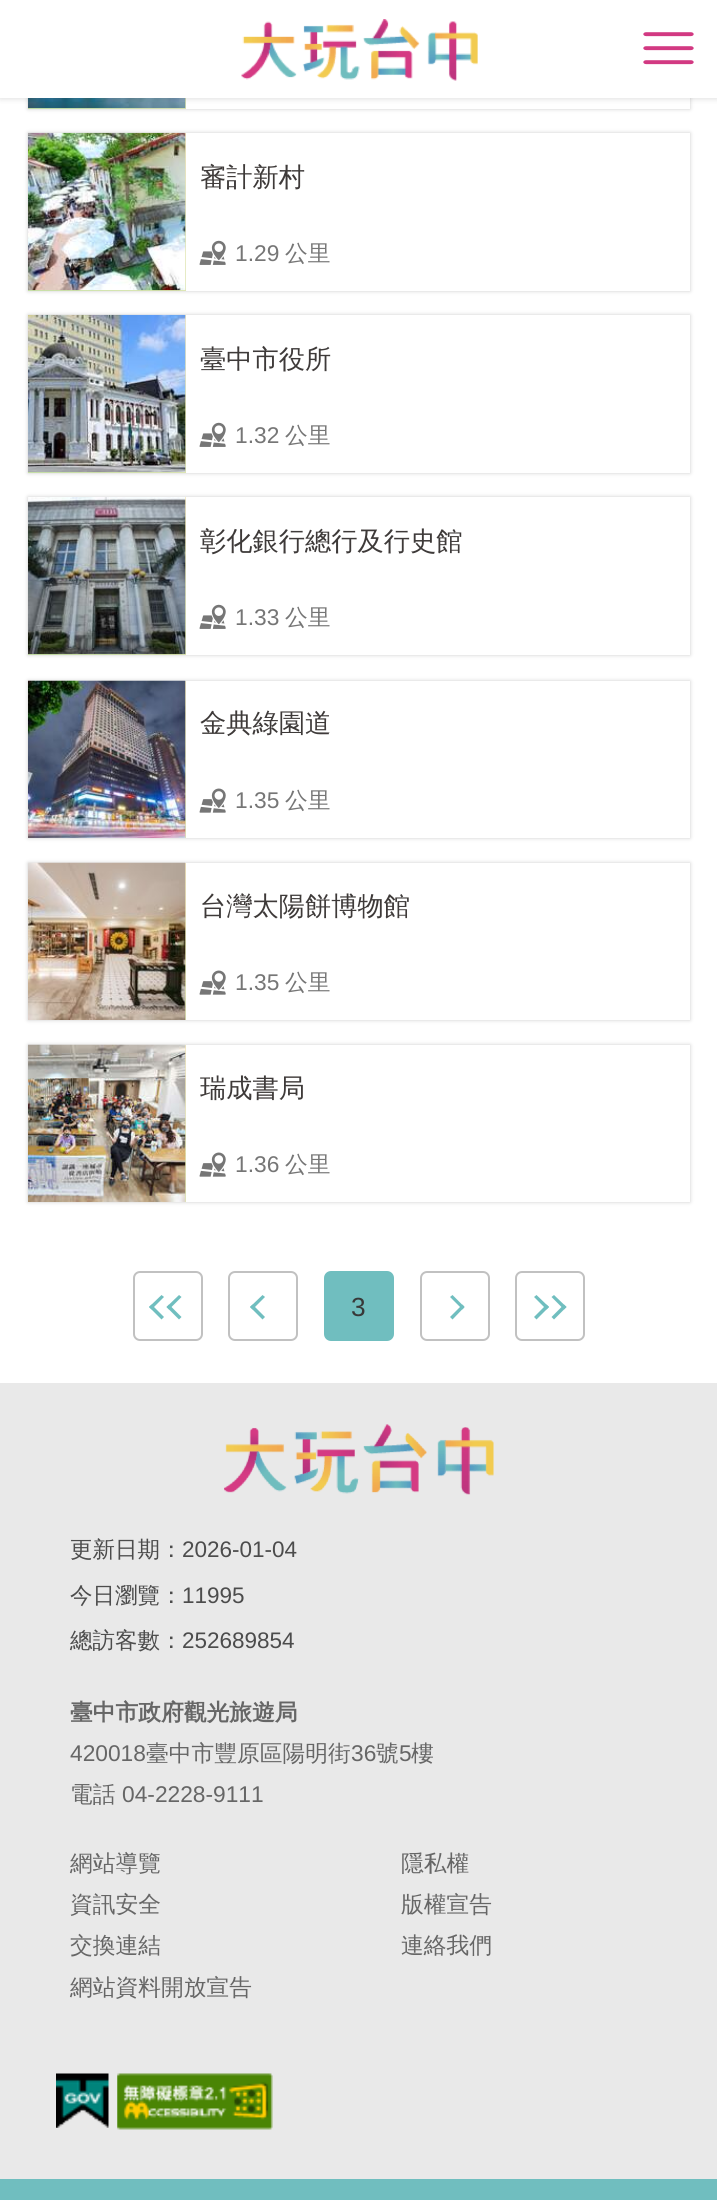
import math
import cairo

surface = cairo.ImageSurface(cairo.FORMAT_RGB24, 717, 2200)
cr = cairo.Context(surface)
options = cairo.FontOptions()
options.set_hint_metrics(cairo.HINT_METRICS_OFF)
options.set_hint_style(cairo.HINT_STYLE_NONE)
cr.set_font_options(options)
cr.set_miter_limit(4)


def rgb(code):
    cr.set_source_rgb(*(v / 255 for v in bytes.fromhex(code[-6:])))


def rrect(x, y, w, h, r):
    cr.new_sub_path()
    for i, (u, v) in enumerate([(x + w - r, y + h - r), (x + r, y + h - r), (x + r, y + r), (x + w - r, y + r)]):
        cr.arc(u, v, r, i * math.pi / 2, (i + 1) * math.pi / 2)
    cr.close_path()


def soft_shadow(x, y, w, h, r, blur, alpha):
    cr.push_group_with_content(cairo.CONTENT_ALPHA)
    cr.set_operator(cairo.OPERATOR_SOURCE)
    for i in range(15, -16, -2):
        e = blur * i / 6
        if min(w, h) + 2 * e > 0:
            cr.set_source_rgba(0, 0, 0, alpha * math.erfc((i - 1) / 8.5) / 2)
            rrect(x - e, y - e, w + 2 * e, h + 2 * e, max(0, min(r + e + blur * .6, min(w, h) / 2 + e)))
            cr.fill()
    cr.mask(cr.pop_group())


def image(path, x, y, w, h):
    cr.save()
    cr.set_source_surface(cairo.ImageSurface.create_from_png(path), x, y)
    cr.rectangle(x, y, w, h)
    cr.fill()
    cr.restore()


rgb("#ffffff")
cr.paint()
rgb("#cccccc")
soft_shadow(28, -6, 662, 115, 0, 2, 1)
rgb("#ffffff")
cr.rectangle(186, 98, 504, 11)
cr.fill()
gradient = cairo.LinearGradient(28, 109, 186, -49)
gradient.add_color_stop_rgba(0, 0.773, 0.882, 0.647, 1)
gradient.add_color_stop_rgba(1, 0.949, 0.906, 0.737, 1)
cr.set_source(gradient)
cr.rectangle(28, 98, 158, 11)
cr.fill()
image("img/3.png", 28, 98, 158, 11)
rgb("#000000")
soft_shadow(0, 0, 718, 98, 0, 3.5, 0.16)
rgb("#ffffff")
cr.rectangle(0, 0, 717, 98)
cr.fill()
image("img/1.png", 241, 19, 237, 62)
image("img/2.png", 643, 32, 51, 33)
rgb("#cccccc")
soft_shadow(28, 133, 662, 158, 0, 2, 1)
rgb("#ffffff")
cr.rectangle(186, 133, 504, 158)
cr.fill()
gradient = cairo.LinearGradient(28, 291, 186, 133)
gradient.add_color_stop_rgba(0, 0.773, 0.882, 0.647, 1)
gradient.add_color_stop_rgba(1, 0.949, 0.906, 0.737, 1)
cr.set_source(gradient)
cr.rectangle(28, 133, 158, 158)
cr.fill()
image("img/4.png", 28, 132, 158, 159)
image("img/5.png", 199, 240, 27, 25)
rgb("#cccccc")
soft_shadow(28, 315, 662, 158, 0, 2, 1)
rgb("#ffffff")
cr.rectangle(186, 315, 504, 158)
cr.fill()
gradient = cairo.LinearGradient(28, 473, 186, 315)
gradient.add_color_stop_rgba(0, 0.773, 0.882, 0.647, 1)
gradient.add_color_stop_rgba(1, 0.949, 0.906, 0.737, 1)
cr.set_source(gradient)
cr.rectangle(28, 315, 158, 158)
cr.fill()
image("img/6.png", 28, 314, 158, 159)
image("img/5.png", 199, 422, 27, 25)
rgb("#cccccc")
soft_shadow(28, 497, 662, 158, 0, 2, 1)
rgb("#ffffff")
cr.rectangle(186, 497, 504, 158)
cr.fill()
gradient = cairo.LinearGradient(28, 655, 186, 497)
gradient.add_color_stop_rgba(0, 0.773, 0.882, 0.647, 1)
gradient.add_color_stop_rgba(1, 0.949, 0.906, 0.737, 1)
cr.set_source(gradient)
cr.rectangle(28, 497, 158, 158)
cr.fill()
image("img/7.png", 28, 497, 158, 158)
image("img/5.png", 199, 604, 27, 25)
rgb("#cccccc")
soft_shadow(28, 681, 662, 157, 0, 2, 1)
rgb("#ffffff")
cr.rectangle(186, 681, 504, 157)
cr.fill()
gradient = cairo.LinearGradient(28, 838, 186, 681)
gradient.add_color_stop_rgba(0, 0.773, 0.882, 0.647, 1)
gradient.add_color_stop_rgba(1, 0.949, 0.906, 0.737, 1)
cr.set_source(gradient)
cr.rectangle(185, 681, 1, 157)
cr.fill()
image("img/8.png", 28, 680, 158, 158)
image("img/9.png", 199, 788, 27, 25)
rgb("#cccccc")
soft_shadow(28, 863, 662, 157, 0, 2, 1)
rgb("#ffffff")
cr.rectangle(186, 863, 504, 157)
cr.fill()
gradient = cairo.LinearGradient(28, 1020, 186, 863)
gradient.add_color_stop_rgba(0, 0.773, 0.882, 0.647, 1)
gradient.add_color_stop_rgba(1, 0.949, 0.906, 0.737, 1)
cr.set_source(gradient)
cr.rectangle(185, 863, 1, 157)
cr.fill()
image("img/10.png", 28, 862, 158, 158)
image("img/9.png", 199, 970, 27, 25)
rgb("#cccccc")
soft_shadow(28, 1045, 662, 157, 0, 2, 1)
rgb("#ffffff")
cr.rectangle(186, 1045, 504, 157)
cr.fill()
gradient = cairo.LinearGradient(28, 1202, 186, 1045)
gradient.add_color_stop_rgba(0, 0.773, 0.882, 0.647, 1)
gradient.add_color_stop_rgba(1, 0.949, 0.906, 0.737, 1)
cr.set_source(gradient)
cr.rectangle(185, 1045, 1, 157)
cr.fill()
image("img/11.png", 28, 1044, 158, 158)
image("img/9.png", 199, 1152, 27, 25)
rrect(134, 1272, 68, 68, 6)
rgb("#c1c1c1")
cr.stroke()
rgb("#70bebf")
cr.new_path()
cr.move_to(164, 1317)
cr.line_to(161.5, 1319.5)
cr.line_to(149, 1307)
cr.line_to(151.5, 1304.5)
cr.close_path()
cr.fill()
cr.new_path()
cr.move_to(164, 1297)
cr.line_to(151.5, 1309.5)
cr.line_to(149, 1307)
cr.line_to(161.5, 1295)
cr.close_path()
cr.move_to(181.5, 1317)
cr.line_to(179, 1319.5)
cr.line_to(166.5, 1307)
cr.line_to(169, 1304.5)
cr.close_path()
cr.fill()
cr.new_path()
cr.move_to(181.5, 1297)
cr.line_to(169, 1309.5)
cr.line_to(166.5, 1307)
cr.line_to(179, 1295)
cr.close_path()
cr.fill()
rrect(229, 1272, 68, 68, 6)
rgb("#c1c1c1")
cr.stroke()
rgb("#70bebf")
cr.new_path()
cr.move_to(265, 1317)
cr.line_to(262.5, 1319.5)
cr.line_to(250, 1307)
cr.line_to(252.5, 1304.5)
cr.close_path()
cr.fill()
cr.new_path()
cr.move_to(265, 1297)
cr.line_to(252.5, 1309.5)
cr.line_to(250, 1307)
cr.line_to(262.5, 1295)
cr.close_path()
cr.fill()
rrect(324, 1271, 70, 70, 7)
cr.fill()
rrect(421, 1272, 68, 68, 6)
rgb("#c1c1c1")
cr.stroke()
rgb("#70bebf")
cr.new_path()
cr.move_to(450, 1297)
cr.line_to(452.5, 1295)
cr.line_to(464.5, 1307)
cr.line_to(462.5, 1309.5)
cr.close_path()
cr.fill()
cr.new_path()
cr.move_to(450, 1317)
cr.line_to(462.5, 1304.5)
cr.line_to(464.5, 1307)
cr.line_to(452.5, 1319.5)
cr.close_path()
cr.fill()
rrect(516, 1272, 68, 68, 6)
rgb("#c1c1c1")
cr.stroke()
rgb("#70bebf")
cr.new_path()
cr.move_to(534, 1297)
cr.line_to(536.5, 1295)
cr.line_to(549, 1307)
cr.line_to(546.5, 1309.5)
cr.close_path()
cr.fill()
cr.new_path()
cr.move_to(534, 1317)
cr.line_to(546.5, 1304.5)
cr.line_to(549, 1307)
cr.line_to(536.5, 1319.5)
cr.close_path()
cr.move_to(551.5, 1297)
cr.line_to(554, 1295)
cr.line_to(566.5, 1307)
cr.line_to(564, 1309.5)
cr.close_path()
cr.fill()
cr.new_path()
cr.move_to(551.5, 1317)
cr.line_to(564, 1304.5)
cr.line_to(566.5, 1307)
cr.line_to(554, 1319.5)
cr.close_path()
cr.fill()
rgb("#e9e9e9")
cr.rectangle(0, 1383, 717, 796)
cr.fill()
image("img/12.png", 224, 1424, 270, 71)
image("img/13.png", 56, 2073, 53, 55)
image("img/14.png", 117, 2073, 156, 57)
rgb("#70bebf")
cr.rectangle(0, 2179, 717, 21)
cr.fill()
cr.select_font_face("WenQuanYi Zen Hei Medium")
cr.set_font_size(26.25)
rgb("#3e3a39")
cr.move_to(200, 186)
cr.show_text("審計新村")
cr.select_font_face("Liberation Sans")
cr.set_font_size(22.75)
rgb("#767676")
cr.move_to(235, 261)
cr.show_text("1.29")
cr.select_font_face("WenQuanYi Zen Hei Medium")
cr.move_to(285, 261)
cr.show_text("公里")
cr.set_font_size(26.25)
rgb("#3e3a39")
cr.move_to(200, 368)
cr.show_text("臺中市役所")
cr.select_font_face("Liberation Sans")
cr.set_font_size(22.75)
rgb("#767676")
cr.move_to(235, 443)
cr.show_text("1.32")
cr.select_font_face("WenQuanYi Zen Hei Medium")
cr.move_to(285, 443)
cr.show_text("公里")
cr.set_font_size(26.25)
rgb("#3e3a39")
cr.move_to(200, 550)
cr.show_text("彰化銀行總行及行史館")
cr.select_font_face("Liberation Sans")
cr.set_font_size(22.75)
rgb("#767676")
cr.move_to(235, 625)
cr.show_text("1.33")
cr.select_font_face("WenQuanYi Zen Hei Medium")
cr.move_to(285, 625)
cr.show_text("公里")
cr.set_font_size(26.25)
rgb("#3e3a39")
cr.move_to(200, 732)
cr.show_text("金典綠園道")
cr.select_font_face("Liberation Sans")
cr.set_font_size(22.75)
rgb("#767676")
cr.move_to(235, 808)
cr.show_text("1.35")
cr.select_font_face("WenQuanYi Zen Hei Medium")
cr.move_to(285, 808)
cr.show_text("公里")
cr.set_font_size(26.25)
rgb("#3e3a39")
cr.move_to(200, 915)
cr.show_text("台灣太陽餅博物館")
cr.select_font_face("Liberation Sans")
cr.set_font_size(22.75)
rgb("#767676")
cr.move_to(235, 990)
cr.show_text("1.35")
cr.select_font_face("WenQuanYi Zen Hei Medium")
cr.move_to(285, 990)
cr.show_text("公里")
cr.save()
cr.rectangle(200, 1071, 189, 77)
cr.clip()
cr.set_font_size(26.25)
rgb("#3e3a39")
cr.move_to(200, 1097)
cr.show_text("瑞成書局")
cr.restore()
cr.select_font_face("Liberation Sans")
cr.move_to(235, 1172)
cr.show_text("1.36")
cr.select_font_face("WenQuanYi Zen Hei Medium")
cr.move_to(285, 1172)
cr.show_text("公里")
cr.select_font_face("Liberation Sans")
cr.set_font_size(26.25)
rgb("#383838")
cr.move_to(351, 1316)
cr.show_text("3")
cr.select_font_face("WenQuanYi Zen Hei Medium")
cr.set_font_size(22.5)
rgb("#4c4c4c")
cr.move_to(70, 1557)
cr.show_text("更新日期：")
cr.select_font_face("Liberation Sans")
cr.move_to(182, 1557)
cr.show_text("2026-01-04")
cr.select_font_face("WenQuanYi Zen Hei Medium")
cr.move_to(70, 1603)
cr.show_text("今日瀏覽：")
cr.select_font_face("Liberation Sans")
cr.move_to(182, 1603)
cr.show_text("11995")
cr.select_font_face("WenQuanYi Zen Hei Medium")
cr.move_to(70, 1648)
cr.show_text("總訪客數：")
cr.select_font_face("Liberation Sans")
cr.move_to(182, 1648)
cr.show_text("252689854")
cr.select_font_face("WenQuanYi Zen Hei", cairo.FONT_SLANT_NORMAL, cairo.FONT_WEIGHT_BOLD)
cr.set_font_size(22.75)
rgb("#666666")
cr.move_to(70, 1720)
cr.show_text("臺中市政府觀光旅遊局")
cr.select_font_face("Liberation Sans")
cr.move_to(70, 1761)
cr.show_text("420018")
cr.select_font_face("WenQuanYi Zen Hei Medium")
cr.move_to(146, 1761)
cr.show_text("臺中市豐原區陽明街")
cr.select_font_face("Liberation Sans")
cr.move_to(351, 1761)
cr.show_text("36")
cr.select_font_face("WenQuanYi Zen Hei Medium")
cr.move_to(376, 1761)
cr.show_text("號")
cr.select_font_face("Liberation Sans")
cr.move_to(399, 1761)
cr.show_text("5")
cr.select_font_face("WenQuanYi Zen Hei Medium")
cr.move_to(411, 1761)
cr.show_text("樓")
cr.move_to(70, 1802)
cr.show_text("電話")
cr.select_font_face("Liberation Sans")
cr.move_to(122, 1802)
cr.show_text("04-2228-9111")
cr.select_font_face("WenQuanYi Zen Hei Medium")
for x, y, s in [
    (70, 1871, "網站導覽"),
    (401, 1871, "隱私權"),
    (70, 1912, "資訊安全"),
    (401, 1912, "版權宣告"),
    (70, 1953, "交換連結"),
    (401, 1953, "連絡我們"),
    (70, 1995, "網站資料開放宣告"),
]:
    cr.move_to(x, y)
    cr.show_text(s)
surface.write_to_png("page.png")
